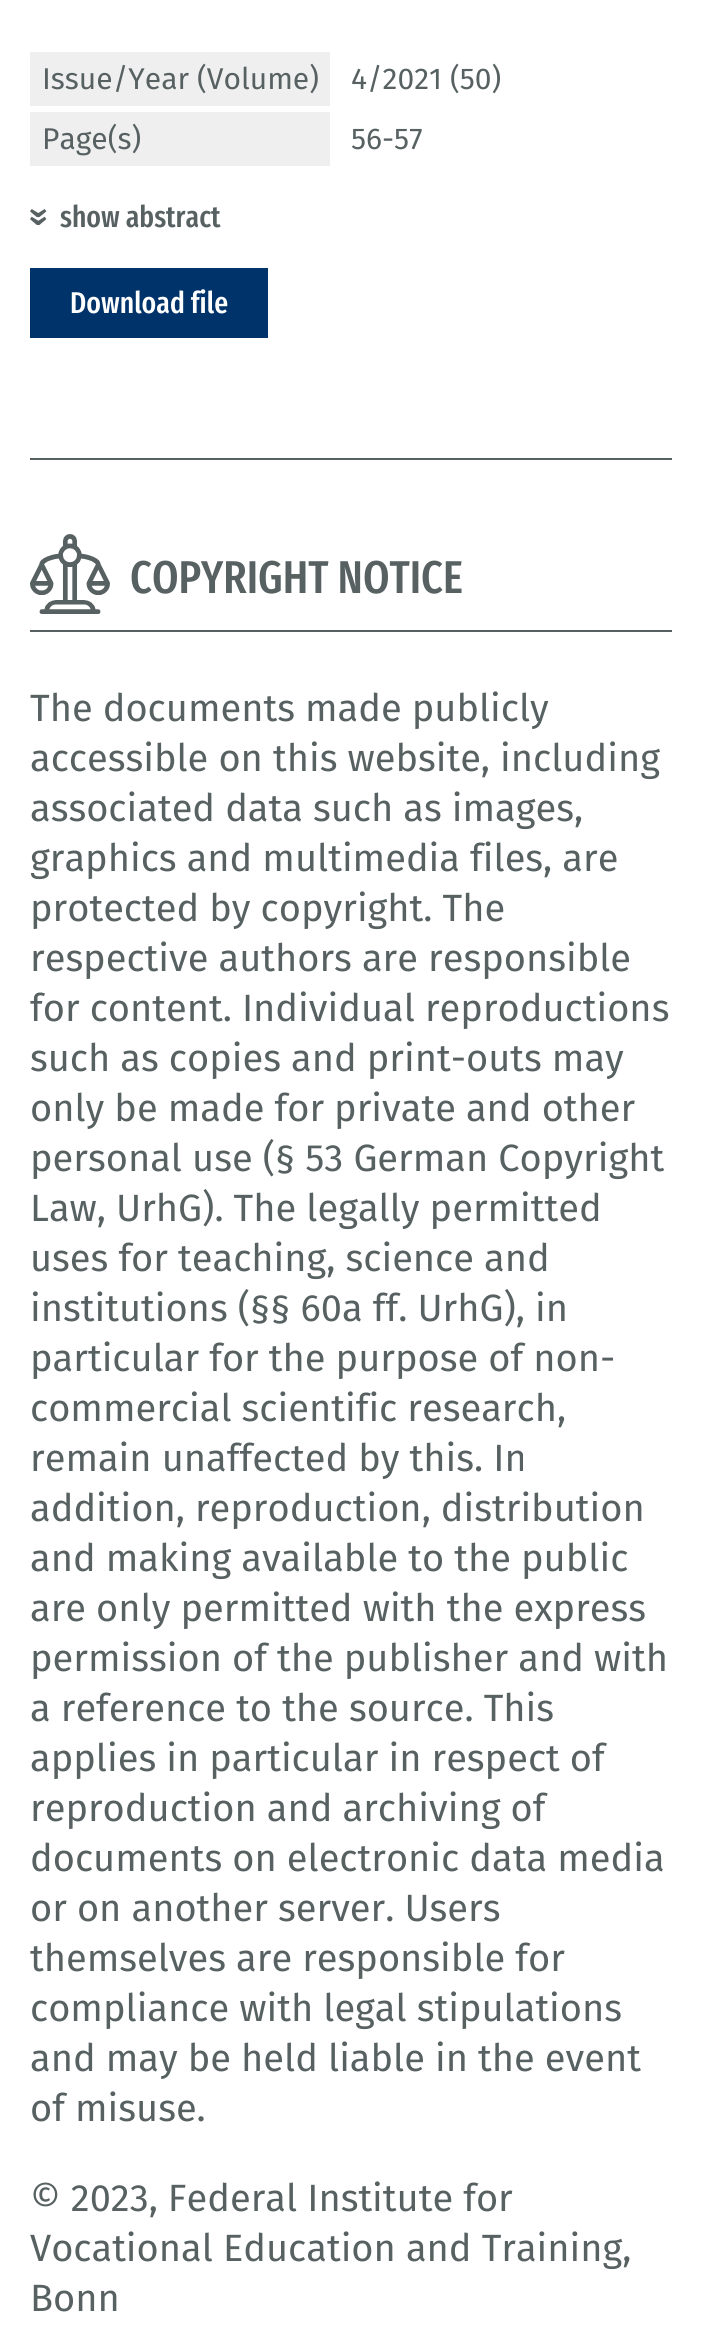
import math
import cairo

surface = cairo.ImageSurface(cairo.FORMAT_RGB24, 701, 2345)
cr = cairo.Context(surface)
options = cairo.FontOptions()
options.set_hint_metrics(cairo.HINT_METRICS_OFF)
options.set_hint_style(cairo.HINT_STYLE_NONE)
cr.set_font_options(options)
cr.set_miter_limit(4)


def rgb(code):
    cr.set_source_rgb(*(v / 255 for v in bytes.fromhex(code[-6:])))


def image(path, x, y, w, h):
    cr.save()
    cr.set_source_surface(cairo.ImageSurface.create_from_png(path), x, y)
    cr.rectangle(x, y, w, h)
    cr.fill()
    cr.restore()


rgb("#ffffff")
cr.paint()
rgb("#efeff0")
cr.rectangle(30, 52, 300, 54)
cr.fill()
cr.rectangle(30, 112, 300, 54)
cr.fill()
image("img/1.png", 30, 209, 17, 16)
for x, y, w, h, color in [
    (30, 268, 238, 70, "#00336a"),
    (30, 458, 642, 2, "#586162"),
    (30, 630, 642, 2, "#586162"),
]:
    rgb(color)
    cr.rectangle(x, y, w, h)
    cr.fill()
image("img/2.png", 30, 534, 80, 80)
cr.select_font_face("Fira Sans")
cr.set_font_size(30)
for x, y, s in [
    (42, 89, "Issue/Year (Volume)"),
    (351, 89, "4/2021 (50)"),
    (42, 149, "Page(s)"),
    (351, 149, "56-57"),
]:
    cr.move_to(x, y)
    cr.show_text(s)
cr.select_font_face("Fira Sans Extra Condensed Medium")
cr.move_to(60, 227)
cr.show_text("show abstract")
rgb("#ffffff")
cr.move_to(70, 313)
cr.show_text("Download file")
cr.set_font_size(46)
rgb("#586162")
cr.move_to(130, 593)
cr.show_text("COPYRIGHT NOTICE")
cr.select_font_face("Fira Sans")
cr.set_font_size(38)
for x, y, s in [
    (30, 721, "The documents made publicly"),
    (30, 771, "accessible on this website, including"),
    (30, 821, "associated data such as images,"),
    (30, 871, "graphics and multimedia files, are"),
    (30, 921, "protected by copyright. The"),
    (30, 971, "respective authors are responsible"),
    (30, 1021, "for content. Individual reproductions"),
    (30, 1071, "such as copies and print-outs may"),
    (30, 1121, "only be made for private and other"),
    (30, 1171, "personal use (§ 53 German Copyright"),
    (30, 1221, "Law, UrhG). The legally permitted"),
    (30, 1271, "uses for teaching, science and"),
    (30, 1321, "institutions (§§ 60a ff. UrhG), in"),
    (30, 1371, "particular for the purpose of non-"),
    (30, 1421, "commercial scientific research,"),
    (30, 1471, "remain unaffected by this. In"),
    (30, 1521, "addition, reproduction, distribution"),
    (30, 1571, "and making available to the public"),
    (30, 1621, "are only permitted with the express"),
    (30, 1671, "permission of the publisher and with"),
    (30, 1721, "a reference to the source. This"),
    (30, 1771, "applies in particular in respect of"),
    (30, 1821, "reproduction and archiving of"),
    (30, 1871, "documents on electronic data media"),
    (30, 1921, "or on another server. Users"),
    (30, 1971, "themselves are responsible for"),
    (30, 2021, "compliance with legal stipulations"),
    (30, 2071, "and may be held liable in the event"),
    (30, 2121, "of misuse."),
    (30, 2211, "© 2023, Federal Institute for"),
    (30, 2261, "Vocational Education and Training,"),
    (30, 2311, "Bonn"),
]:
    cr.move_to(x, y)
    cr.show_text(s)
surface.write_to_png("page.png")
